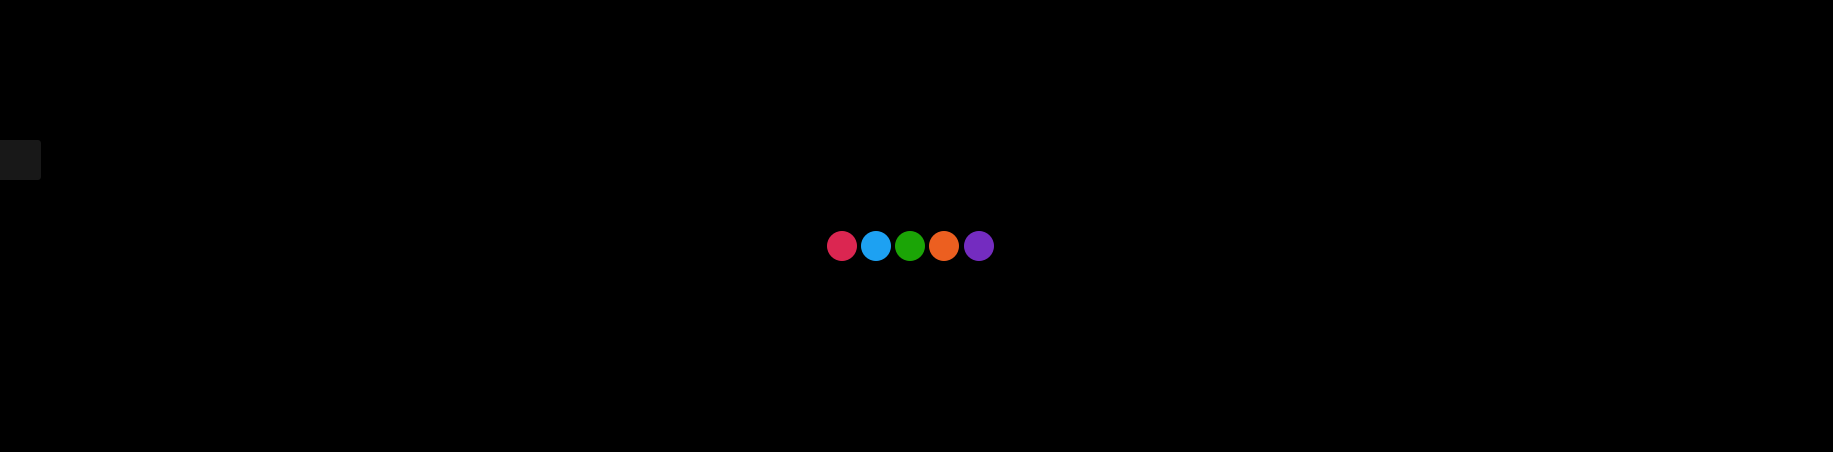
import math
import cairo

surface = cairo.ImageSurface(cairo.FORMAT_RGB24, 1833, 452)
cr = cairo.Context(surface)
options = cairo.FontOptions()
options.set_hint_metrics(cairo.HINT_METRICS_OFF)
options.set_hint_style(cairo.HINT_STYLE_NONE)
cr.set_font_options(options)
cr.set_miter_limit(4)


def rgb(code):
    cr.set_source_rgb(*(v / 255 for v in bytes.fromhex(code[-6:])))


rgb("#000000")
cr.paint()
rgb("#181818")
cr.new_path()
cr.move_to(-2, 140)
cr.line_to(38, 140)
cr.curve_to(39.5, 140, 41, 141.5, 41, 143)
cr.line_to(41, 177)
cr.curve_to(41, 178.5, 39.5, 180, 38, 180)
cr.line_to(-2, 180)
cr.close_path()
cr.fill()
rgb("#db2651")
cr.arc(842, 246, 15, 0, 2 * math.pi)
cr.fill()
rgb("#1da1f2")
cr.arc(876, 246, 15, 0, 2 * math.pi)
cr.fill()
rgb("#1ba506")
cr.arc(910, 246, 15, 0, 2 * math.pi)
cr.fill()
rgb("#ec5f20")
cr.arc(944, 246, 15, 0, 2 * math.pi)
cr.fill()
rgb("#742cc0")
cr.arc(979, 246, 15, 0, 2 * math.pi)
cr.fill()
surface.write_to_png("page.png")
